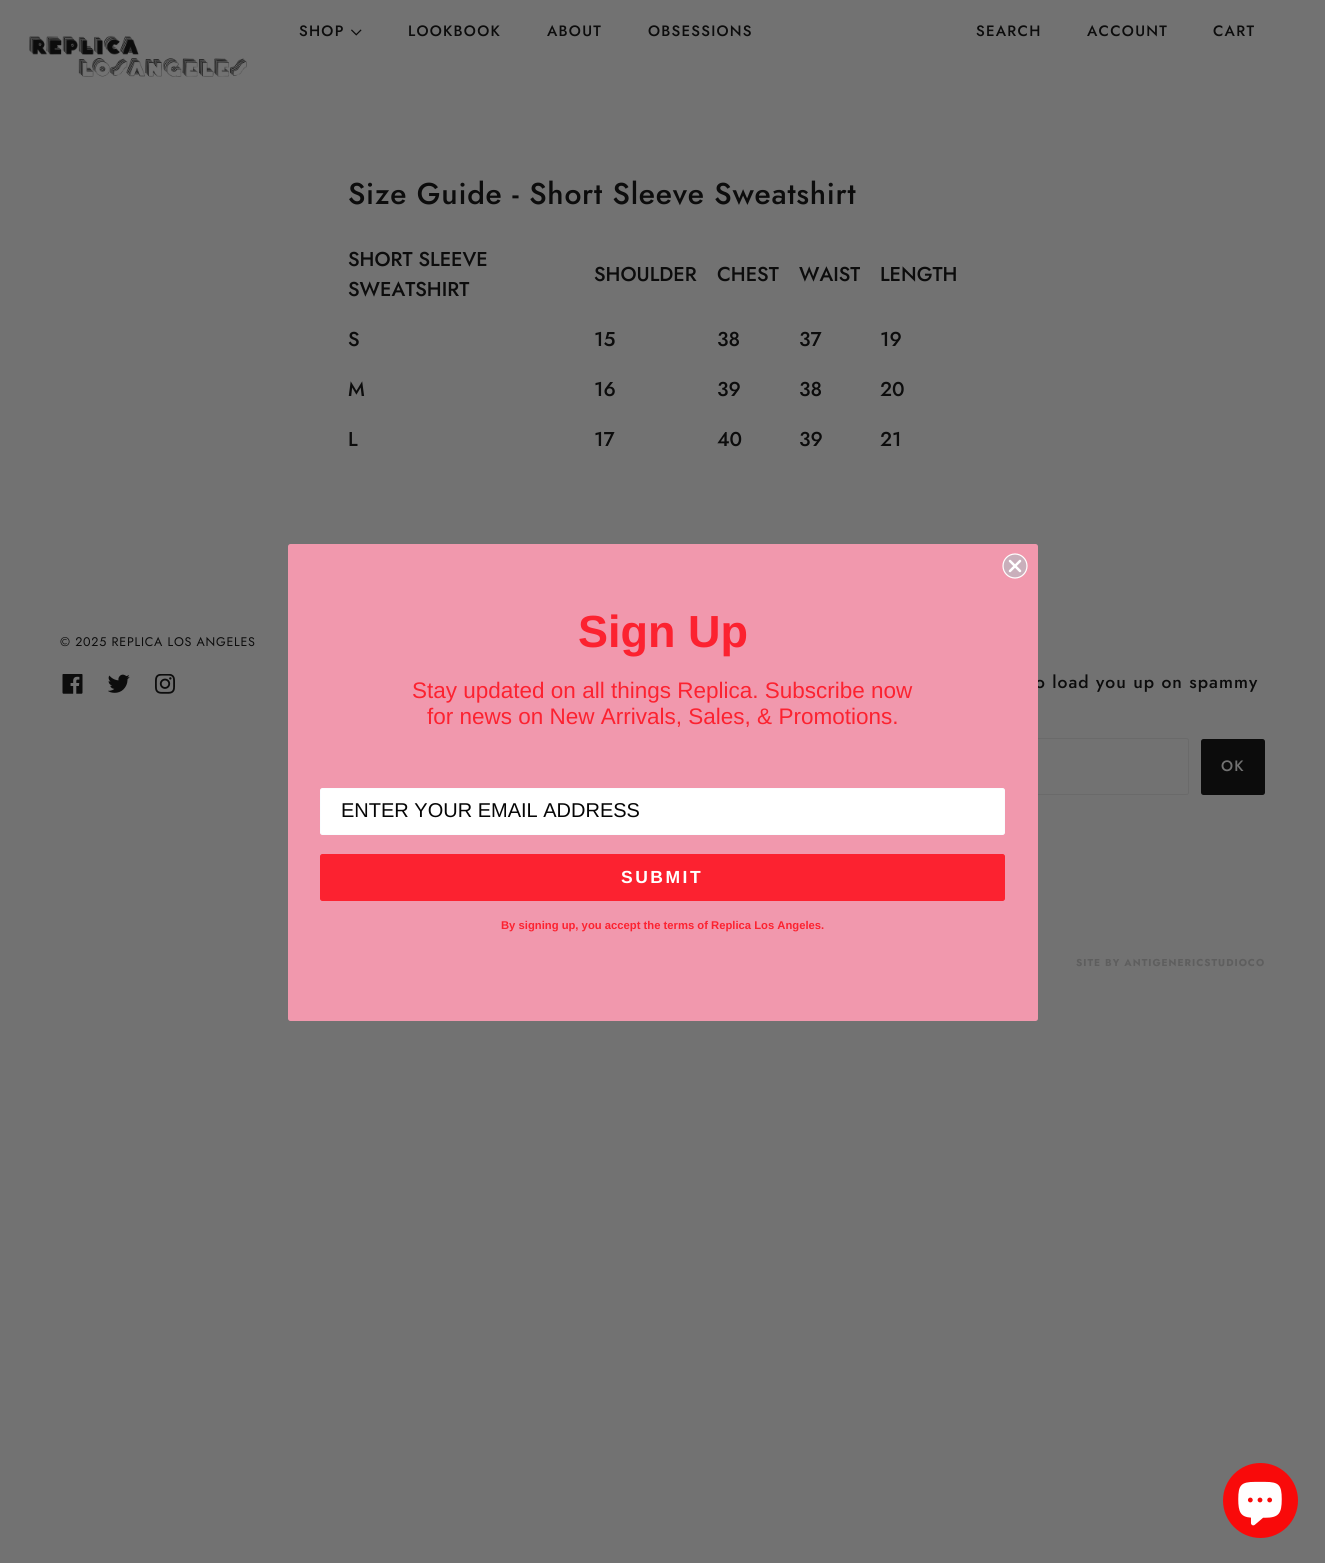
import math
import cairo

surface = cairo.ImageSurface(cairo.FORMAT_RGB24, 1325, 1563)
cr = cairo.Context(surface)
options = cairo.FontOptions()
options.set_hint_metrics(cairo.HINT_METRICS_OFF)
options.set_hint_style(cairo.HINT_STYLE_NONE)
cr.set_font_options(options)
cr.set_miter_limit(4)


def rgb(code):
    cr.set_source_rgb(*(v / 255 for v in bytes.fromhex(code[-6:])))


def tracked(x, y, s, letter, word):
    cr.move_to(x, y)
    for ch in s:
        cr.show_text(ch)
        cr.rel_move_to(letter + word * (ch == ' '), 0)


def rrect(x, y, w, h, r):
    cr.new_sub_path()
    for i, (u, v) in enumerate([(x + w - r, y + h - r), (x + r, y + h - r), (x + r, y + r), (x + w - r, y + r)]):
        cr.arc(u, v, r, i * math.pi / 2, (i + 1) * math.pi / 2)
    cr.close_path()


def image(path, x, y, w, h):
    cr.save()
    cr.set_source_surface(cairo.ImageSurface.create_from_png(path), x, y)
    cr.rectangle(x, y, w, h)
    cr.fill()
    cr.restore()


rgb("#727272")
cr.paint()
image("img/1.png", 351, 29, 11, 7)
image("img/2.png", 29, 35, 218, 42)
image("img/3.png", 62, 674, 21, 20)
image("img/4.png", 108, 674, 22, 19)
image("img/5.png", 155, 674, 20, 20)
rrect(890.5, 738.5, 298, 56, 2)
rgb("#6a6a6a")
cr.set_line_width(1)
cr.stroke()
rgb("#0c0c0c")
rrect(1201, 739, 64, 56, 2.5)
cr.fill()
rgb("#f90a0a")
cr.arc(1260.5, 1500.5, 37.5, 0, 2 * math.pi)
cr.fill()
image("img/6.png", 1238, 1481, 44, 45)
cr.select_font_face("Jost Medium")
cr.set_font_size(15)
rgb("#0c0c0c")
for x, y, s in [
    (299, 36, "SHOP"),
    (408, 36, "LOOKBOOK"),
    (547, 36, "ABOUT"),
    (648, 36, "OBSESSIONS"),
    (976, 36, "SEARCH"),
    (1087, 36, "ACCOUNT"),
    (1213, 36, "CART"),
]:
    tracked(x, y, s, 1.25, 0)
cr.set_font_size(30)
tracked(348, 204, "Size Guide - Short Sleeve Sweatshirt", 0.75, 0)
cr.set_font_size(20)
for x, y, s in [
    (348, 266, "SHORT SLEEVE"),
    (348, 296, "SWEATSHIRT"),
    (594, 281, "SHOULDER"),
    (717, 281, "CHEST"),
    (799, 281, "WAIST"),
    (880, 281, "LENGTH"),
    (348, 346, "S"),
    (594, 346, "15"),
    (717, 346, "38"),
    (799, 346, "37"),
    (880, 346, "19"),
    (348, 396, "M"),
    (594, 396, "16"),
    (717, 396, "39"),
    (799, 396, "38"),
    (880, 396, "20"),
    (348, 446, "L"),
    (594, 446, "17"),
    (717, 446, "40"),
    (799, 446, "39"),
    (880, 446, "21"),
]:
    cr.move_to(x, y)
    cr.show_text(s)
cr.select_font_face("Jost")
cr.set_font_size(12.5)
tracked(60, 646, "© 2025 REPLICA LOS ANGELES", 0.75, 0)
cr.select_font_face("Jost Medium")
cr.set_font_size(17.5)
tracked(1035, 688, "o load you up on spammy", 1.05, 0)
cr.set_font_size(15)
rgb("#727272")
tracked(1221, 771, "OK", 1.25, 0)
cr.select_font_face("Jost", cairo.FONT_SLANT_NORMAL, cairo.FONT_WEIGHT_BOLD)
cr.set_font_size(10)
rgb("#5e5e5e")
tracked(1076, 966, "SITE BY ANTIGENERICSTUDIOCO", 1, 0)
rgb("#f198ad")
rrect(288, 544, 750, 477, 2.5)
cr.fill()
rgb("#c9afbb")
cr.arc(1015, 566, 12, 0, 2 * math.pi)
cr.fill_preserve()
rgb("#ffffff")
cr.set_line_width(1.2)
cr.stroke()
cr.new_path()
cr.move_to(1010, 561)
cr.line_to(1020, 571)
cr.move_to(1010, 571)
cr.line_to(1020, 561)
cr.close_path()
cr.set_line_width(2.5)
cr.set_line_cap(cairo.LINE_CAP_ROUND)
cr.set_line_join(cairo.LINE_JOIN_ROUND)
cr.stroke()
cr.select_font_face("Liberation Sans", cairo.FONT_SLANT_NORMAL, cairo.FONT_WEIGHT_BOLD)
cr.set_font_size(45)
rgb("#fc2230")
cr.move_to(578, 647)
cr.show_text("Sign Up")
cr.select_font_face("Liberation Sans")
cr.set_font_size(22.5)
cr.move_to(412, 698)
cr.show_text("Stay updated on all things Replica. Subscribe now")
cr.move_to(427, 724)
cr.show_text("for news on New Arrivals, Sales, & Promotions.")
rgb("#ffffff")
rrect(320.5, 788.5, 684, 46, 2)
cr.fill_preserve()
rgb("#fafdff")
cr.set_line_width(1)
cr.set_line_cap(cairo.LINE_CAP_BUTT)
cr.set_line_join(cairo.LINE_JOIN_MITER)
cr.stroke()
cr.set_font_size(20)
rgb("#050505")
cr.move_to(341, 817)
cr.show_text("ENTER YOUR EMAIL ADDRESS")
rgb("#fc2230")
rrect(320.5, 854.5, 684, 46, 2)
cr.fill_preserve()
cr.stroke()
cr.select_font_face("Liberation Sans", cairo.FONT_SLANT_NORMAL, cairo.FONT_WEIGHT_BOLD)
cr.set_font_size(17.5)
rgb("#ffffff")
tracked(621, 883, "SUBMIT", 2.5, 0)
cr.set_font_size(11.25)
rgb("#fc2230")
cr.move_to(501, 929)
cr.show_text("By signing up, you accept the terms of Replica Los Angeles.")
surface.write_to_png("page.png")
